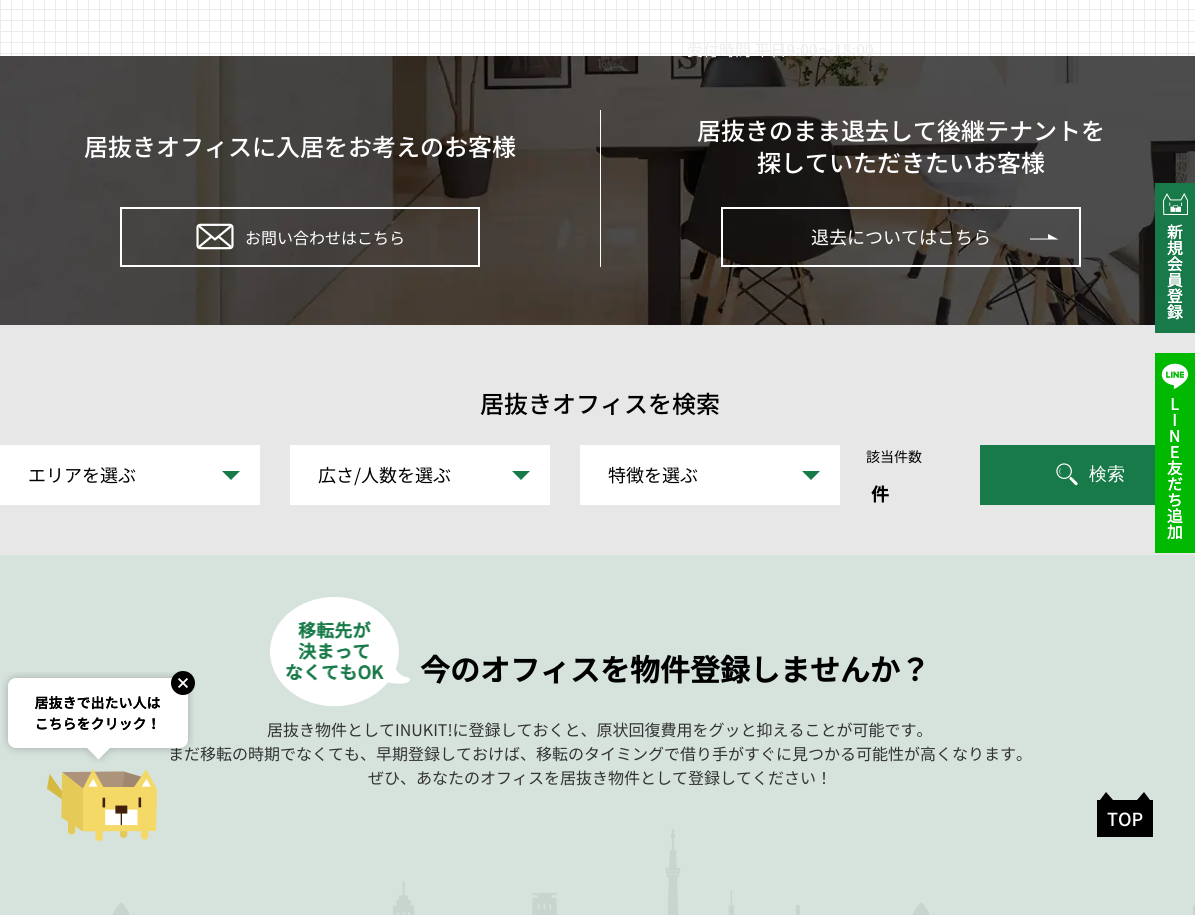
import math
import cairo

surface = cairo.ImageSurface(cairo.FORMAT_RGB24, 1195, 915)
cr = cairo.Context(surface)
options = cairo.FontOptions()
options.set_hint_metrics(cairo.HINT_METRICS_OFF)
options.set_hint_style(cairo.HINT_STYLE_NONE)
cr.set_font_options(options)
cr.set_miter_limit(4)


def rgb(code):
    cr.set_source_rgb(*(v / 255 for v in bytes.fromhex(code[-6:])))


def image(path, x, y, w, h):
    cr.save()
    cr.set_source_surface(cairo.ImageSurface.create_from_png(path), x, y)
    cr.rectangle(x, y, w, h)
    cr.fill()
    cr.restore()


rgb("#ffffff")
cr.paint()
image("img/1.png", 0, 0, 1195, 56)
image("img/2.png", 0, 56, 1195, 269)
cr.rectangle(121, 208, 358, 58)
rgb("#ffffff")
cr.stroke()
image("img/3.png", 196, 223, 38, 27)
cr.rectangle(600, 110, 1, 157)
cr.fill()
cr.rectangle(722, 208, 358, 58)
cr.stroke()
cr.new_path()
cr.move_to(1030, 238.5)
cr.line_to(1048, 238.5)
cr.line_to(1048, 239.5)
cr.line_to(1030, 239.5)
cr.close_path()
cr.move_to(1048, 234)
cr.line_to(1048, 239.5)
cr.line_to(1058.5, 239.5)
cr.close_path()
cr.fill()
rgb("#e7e7e7")
cr.rectangle(0, 325, 1195, 230)
cr.fill()
rgb("#ffffff")
cr.rectangle(0, 445, 260, 60)
cr.fill()
rgb("#177a48")
cr.new_path()
cr.move_to(222, 471)
cr.line_to(240, 471)
cr.line_to(231, 480)
cr.close_path()
cr.fill()
rgb("#ffffff")
cr.rectangle(290, 445, 260, 60)
cr.fill()
rgb("#177a48")
cr.new_path()
cr.move_to(512, 471)
cr.line_to(530, 471)
cr.line_to(521, 480)
cr.close_path()
cr.fill()
rgb("#ffffff")
cr.rectangle(580, 445, 260, 60)
cr.fill()
rgb("#177a48")
cr.new_path()
cr.move_to(802, 471)
cr.line_to(820, 471)
cr.line_to(811, 480)
cr.close_path()
cr.fill()
cr.rectangle(980, 445, 175, 60)
cr.fill()
image("img/4.png", 1056, 463, 22, 23)
rgb("#d6e3dc")
cr.rectangle(0, 555, 1195, 360)
cr.fill()
image("img/8.png", 112, 829, 1083, 86)
image("img/7.png", 47, 769, 110, 72)
image("img/9.png", 270, 597, 140, 110)
image("img/10.png", 1155, 183, 40, 150)
image("img/11.png", 1155, 353, 40, 200)
rgb("#000000")
cr.new_path()
cr.move_to(1097, 800)
cr.line_to(1153, 800)
cr.line_to(1153, 837)
cr.line_to(1097, 837)
cr.close_path()
cr.move_to(1106, 792)
cr.line_to(1100, 800)
cr.line_to(1113, 800)
cr.close_path()
cr.move_to(1144, 792)
cr.line_to(1137, 800)
cr.line_to(1150, 800)
cr.close_path()
cr.fill()
cr.select_font_face("Noto Sans JP")
cr.set_font_size(16)
rgb("#eeeeee")
cr.move_to(687, 56)
cr.show_text("受付時間 平日9:00～18:00")
cr.select_font_face("Noto Sans JP Medium")
cr.set_font_size(24)
rgb("#ffffff")
cr.move_to(84, 156)
cr.show_text("居抜きオフィスに入居をお考えのお客様")
cr.select_font_face("Noto Sans JP")
cr.set_font_size(16)
cr.move_to(245, 244)
cr.show_text("お問い合わせはこちら")
cr.select_font_face("Noto Sans JP Medium")
cr.set_font_size(24)
cr.move_to(697, 140)
cr.show_text("居抜きのまま退去して後継テナントを")
cr.move_to(757, 172)
cr.show_text("探していただきたいお客様")
cr.select_font_face("Noto Sans JP")
cr.set_font_size(18)
cr.move_to(811, 244)
cr.show_text("退去についてはこちら")
cr.select_font_face("Noto Sans JP Medium")
cr.set_font_size(24)
rgb("#000000")
cr.move_to(480, 413)
cr.show_text("居抜きオフィスを検索")
cr.select_font_face("Noto Sans JP")
cr.set_font_size(18)
for x, y, s in [
    (28, 482, "エリアを選ぶ"),
    (318, 482, "広さ/人数を選ぶ"),
    (608, 482, "特徴を選ぶ"),
]:
    cr.move_to(x, y)
    cr.show_text(s)
cr.set_font_size(14)
cr.move_to(866, 462)
cr.show_text("該当件数")
cr.select_font_face("Noto Sans JP", cairo.FONT_SLANT_NORMAL, cairo.FONT_WEIGHT_BOLD)
cr.set_font_size(18)
cr.move_to(871, 501)
cr.show_text("件")
cr.select_font_face("WenQuanYi Zen Hei Medium")
rgb("#ffffff")
cr.move_to(1089, 480)
cr.show_text("検索")
cr.select_font_face("Noto Sans JP", cairo.FONT_SLANT_NORMAL, cairo.FONT_WEIGHT_BOLD)
cr.set_font_size(30)
rgb("#000000")
cr.move_to(420, 681)
cr.show_text("今のオフィスを物件登録しませんか？")
cr.select_font_face("Noto Sans JP")
cr.set_font_size(16)
rgb("#333333")
cr.move_to(267, 736)
cr.show_text("居抜き物件としてINUKIT!に登録しておくと、原状回復費用をグッと抑えることが可能です。")
cr.move_to(168, 760)
cr.show_text("まだ移転の時期でなくても、早期登録しておけば、移転のタイミングで借り手がすぐに見つかる可能性が高くなります。")
image("img/6.png", 2, 672, 192, 91)
image("img/5.png", 171, 671, 24, 24)
cr.move_to(368, 784)
cr.show_text("ぜひ、あなたのオフィスを居抜き物件として登録してください！")
cr.select_font_face("Noto Sans JP Medium")
cr.set_font_size(18)
rgb("#ffffff")
cr.move_to(1107, 826)
cr.show_text("TOP")
surface.write_to_png("page.png")
